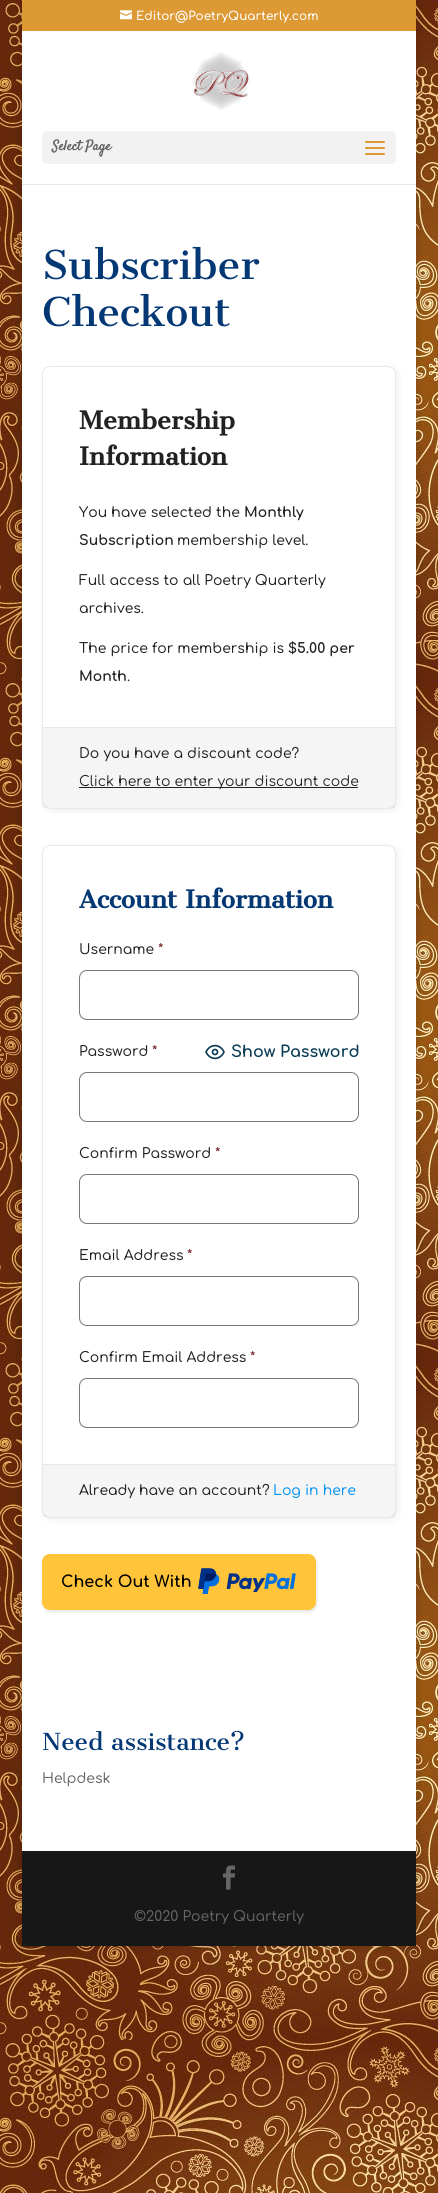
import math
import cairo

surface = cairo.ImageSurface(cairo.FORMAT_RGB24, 438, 2193)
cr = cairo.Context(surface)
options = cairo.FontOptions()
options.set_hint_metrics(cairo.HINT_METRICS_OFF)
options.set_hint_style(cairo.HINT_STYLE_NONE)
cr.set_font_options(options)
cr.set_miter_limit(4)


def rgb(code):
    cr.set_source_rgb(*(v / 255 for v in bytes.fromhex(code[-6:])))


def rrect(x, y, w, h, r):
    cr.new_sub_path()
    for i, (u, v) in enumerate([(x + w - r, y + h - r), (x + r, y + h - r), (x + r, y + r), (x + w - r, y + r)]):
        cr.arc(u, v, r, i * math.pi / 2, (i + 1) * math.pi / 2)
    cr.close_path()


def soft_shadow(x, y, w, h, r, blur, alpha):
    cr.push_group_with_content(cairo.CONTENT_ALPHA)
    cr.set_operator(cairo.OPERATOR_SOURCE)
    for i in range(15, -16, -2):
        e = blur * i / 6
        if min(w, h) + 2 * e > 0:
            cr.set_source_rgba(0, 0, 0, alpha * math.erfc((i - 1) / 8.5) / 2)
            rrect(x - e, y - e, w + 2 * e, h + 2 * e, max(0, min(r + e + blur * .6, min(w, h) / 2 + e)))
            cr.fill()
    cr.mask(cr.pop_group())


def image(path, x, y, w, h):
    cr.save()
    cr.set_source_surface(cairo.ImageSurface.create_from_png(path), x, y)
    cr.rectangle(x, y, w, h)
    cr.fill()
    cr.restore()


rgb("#ffffff")
cr.paint()
image("img/1.png", 0, 0, 438, 2193)
rgb("#000000")
soft_shadow(22, 0, 394, 1946, 0, 5, 0.2)
rgb("#dd9933")
cr.rectangle(22, 0, 394, 31)
cr.fill()
image("img/2.png", 120, 10, 12, 10)
rgb("#e6e6e6")
cr.rectangle(22, 184, 394, 1)
cr.fill()
rgb("#ffffff")
cr.rectangle(22, 31, 394, 153)
cr.fill()
image("img/3.png", 192, 52, 59, 58)
rgb("#f2f2f2")
rrect(42, 131, 354, 33, 5)
cr.fill()
image("img/4.png", 365, 141, 20, 14)
rgb("#ffffff")
cr.rectangle(22, 185, 394, 1666)
cr.fill()
rgb("#000000")
soft_shadow(44, 368, 354, 443, 8, 3.5, 0.07)
rgb("#ffffff")
rrect(42.5, 366.5, 353, 442, 7.5)
cr.fill_preserve()
rgb("#e8e8e8")
cr.set_line_width(1)
cr.stroke()
cr.set_source_rgba(0, 0, 0, 0.04)
cr.rectangle(43, 728, 352, 80)
cr.fill()
rgb("#e8e8e8")
cr.rectangle(43, 727, 352, 1)
cr.fill()
rgb("#222222")
cr.rectangle(79, 787, 279, 1)
cr.fill()
rgb("#000000")
soft_shadow(44, 847, 354, 673, 8, 3.5, 0.07)
rgb("#ffffff")
rrect(42.5, 845.5, 353, 672, 7.5)
cr.fill_preserve()
rgb("#e8e8e8")
cr.stroke()
rrect(79.5, 970.5, 279, 49, 7.5)
rgb("#777777")
cr.stroke()
cr.new_path()
cr.move_to(206, 1052)
cr.curve_to(210, 1043.5, 220, 1043.5, 224, 1052)
cr.curve_to(220, 1060.5, 210, 1060.5, 206, 1052)
cr.close_path()
rgb("#0c3d54")
cr.set_line_width(1.7)
cr.set_line_cap(cairo.LINE_CAP_ROUND)
cr.set_line_join(cairo.LINE_JOIN_ROUND)
cr.stroke()
cr.arc(215, 1052, 2.5, 0, 2 * math.pi)
cr.set_line_cap(cairo.LINE_CAP_BUTT)
cr.set_line_join(cairo.LINE_JOIN_MITER)
cr.stroke()
rrect(79.5, 1072.5, 279, 49, 7.5)
rgb("#777777")
cr.set_line_width(1)
cr.stroke()
rrect(79.5, 1174.5, 279, 49, 7.5)
cr.stroke()
rrect(79.5, 1276.5, 279, 49, 7.5)
cr.stroke()
rrect(79.5, 1378.5, 279, 49, 7.5)
cr.stroke()
cr.set_source_rgba(0, 0, 0, 0.04)
cr.rectangle(43, 1465, 352, 52)
cr.fill()
rgb("#e8e8e8")
cr.rectangle(43, 1464, 352, 1)
cr.fill()
rgb("#000000")
soft_shadow(43, 1556, 274, 56, 8, 2, 0.1)
rgb("#ffc439")
rrect(42.5, 1554.5, 273, 55, 7.5)
cr.fill_preserve()
cr.stroke()
image("img/5.png", 198, 1568, 98, 26)
rgb("#171717")
cr.rectangle(22, 1851, 394, 95)
cr.fill()
image("img/6.png", 223, 1865, 12, 25)
cr.select_font_face("Comfortaa SemiBold")
cr.set_font_size(12)
rgb("#ffffff")
cr.move_to(136, 20)
cr.show_text("Editor@PoetryQuarterly.com")
cr.select_font_face("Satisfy", cairo.FONT_SLANT_NORMAL, cairo.FONT_WEIGHT_BOLD)
cr.set_font_size(14)
rgb("#666666")
cr.move_to(52, 150)
cr.show_text("Select Page")
cr.select_font_face("Cantata One")
cr.set_font_size(39)
rgb("#033875")
cr.move_to(42, 279)
cr.show_text("Subscriber")
cr.move_to(42, 326)
cr.show_text("Checkout")
cr.select_font_face("Cantata One", cairo.FONT_SLANT_NORMAL, cairo.FONT_WEIGHT_BOLD)
cr.set_font_size(24)
rgb("#222222")
cr.move_to(79, 429)
cr.show_text("Membership")
cr.move_to(79, 465)
cr.show_text("Information")
cr.select_font_face("Comfortaa Medium")
cr.set_font_size(14)
cr.move_to(79, 517)
cr.show_text("You have selected the")
cr.select_font_face("Comfortaa", cairo.FONT_SLANT_NORMAL, cairo.FONT_WEIGHT_BOLD)
cr.move_to(244, 517)
cr.show_text("Monthly")
cr.move_to(79, 545)
cr.show_text("Subscription")
cr.select_font_face("Comfortaa Medium")
for x, y, s in [
    (177, 545, "membership level."),
    (79, 585, "Full access to all Poetry Quarterly"),
    (79, 613, "archives."),
    (79, 653, "The price for membership is"),
]:
    cr.move_to(x, y)
    cr.show_text(s)
cr.select_font_face("Comfortaa", cairo.FONT_SLANT_NORMAL, cairo.FONT_WEIGHT_BOLD)
cr.move_to(288, 653)
cr.show_text("$5.00 per")
cr.move_to(79, 681)
cr.show_text("Month")
cr.select_font_face("Comfortaa Medium")
cr.move_to(127, 681)
cr.show_text(".")
cr.move_to(79, 758)
cr.show_text("Do you have a discount code?")
cr.select_font_face("Comfortaa")
cr.move_to(79, 786)
cr.show_text("Click here to enter your discount code")
cr.select_font_face("Cantata One", cairo.FONT_SLANT_NORMAL, cairo.FONT_WEIGHT_BOLD)
cr.set_font_size(24)
rgb("#033875")
cr.move_to(79, 908)
cr.show_text("Account Information")
cr.select_font_face("Comfortaa Medium")
cr.set_font_size(14)
rgb("#222222")
cr.move_to(79, 954)
cr.show_text("Username")
rgb("#721c24")
cr.move_to(158, 954)
cr.show_text("*")
rgb("#222222")
cr.move_to(79, 1056)
cr.show_text("Password")
rgb("#721c24")
cr.move_to(152, 1056)
cr.show_text("*")
cr.select_font_face("Comfortaa", cairo.FONT_SLANT_NORMAL, cairo.FONT_WEIGHT_BOLD)
cr.set_font_size(16)
rgb("#0c3d54")
cr.move_to(231, 1057)
cr.show_text("Show Password")
cr.select_font_face("Comfortaa Medium")
cr.set_font_size(14)
rgb("#222222")
cr.move_to(79, 1158)
cr.show_text("Confirm Password")
rgb("#721c24")
cr.move_to(215, 1158)
cr.show_text("*")
rgb("#222222")
cr.move_to(79, 1260)
cr.show_text("Email Address")
rgb("#721c24")
cr.move_to(187, 1260)
cr.show_text("*")
rgb("#222222")
cr.move_to(79, 1362)
cr.show_text("Confirm Email Address")
rgb("#721c24")
cr.move_to(250, 1362)
cr.show_text("*")
rgb("#222222")
cr.move_to(79, 1495)
cr.show_text("Already have an account?")
rgb("#0493f2")
cr.move_to(273, 1495)
cr.show_text("Log in here")
cr.select_font_face("Comfortaa", cairo.FONT_SLANT_NORMAL, cairo.FONT_WEIGHT_BOLD)
cr.set_font_size(16)
rgb("#000000")
cr.move_to(61, 1587)
cr.show_text("Check Out With")
cr.select_font_face("Cantata One")
cr.set_font_size(23)
rgb("#033875")
cr.move_to(42, 1750)
cr.show_text("Need assistance?")
cr.select_font_face("Comfortaa Medium")
cr.set_font_size(14)
rgb("#666666")
cr.move_to(42, 1783)
cr.show_text("Helpdesk")
cr.move_to(134, 1921)
cr.show_text("©2020 Poetry Quarterly")
surface.write_to_png("page.png")
